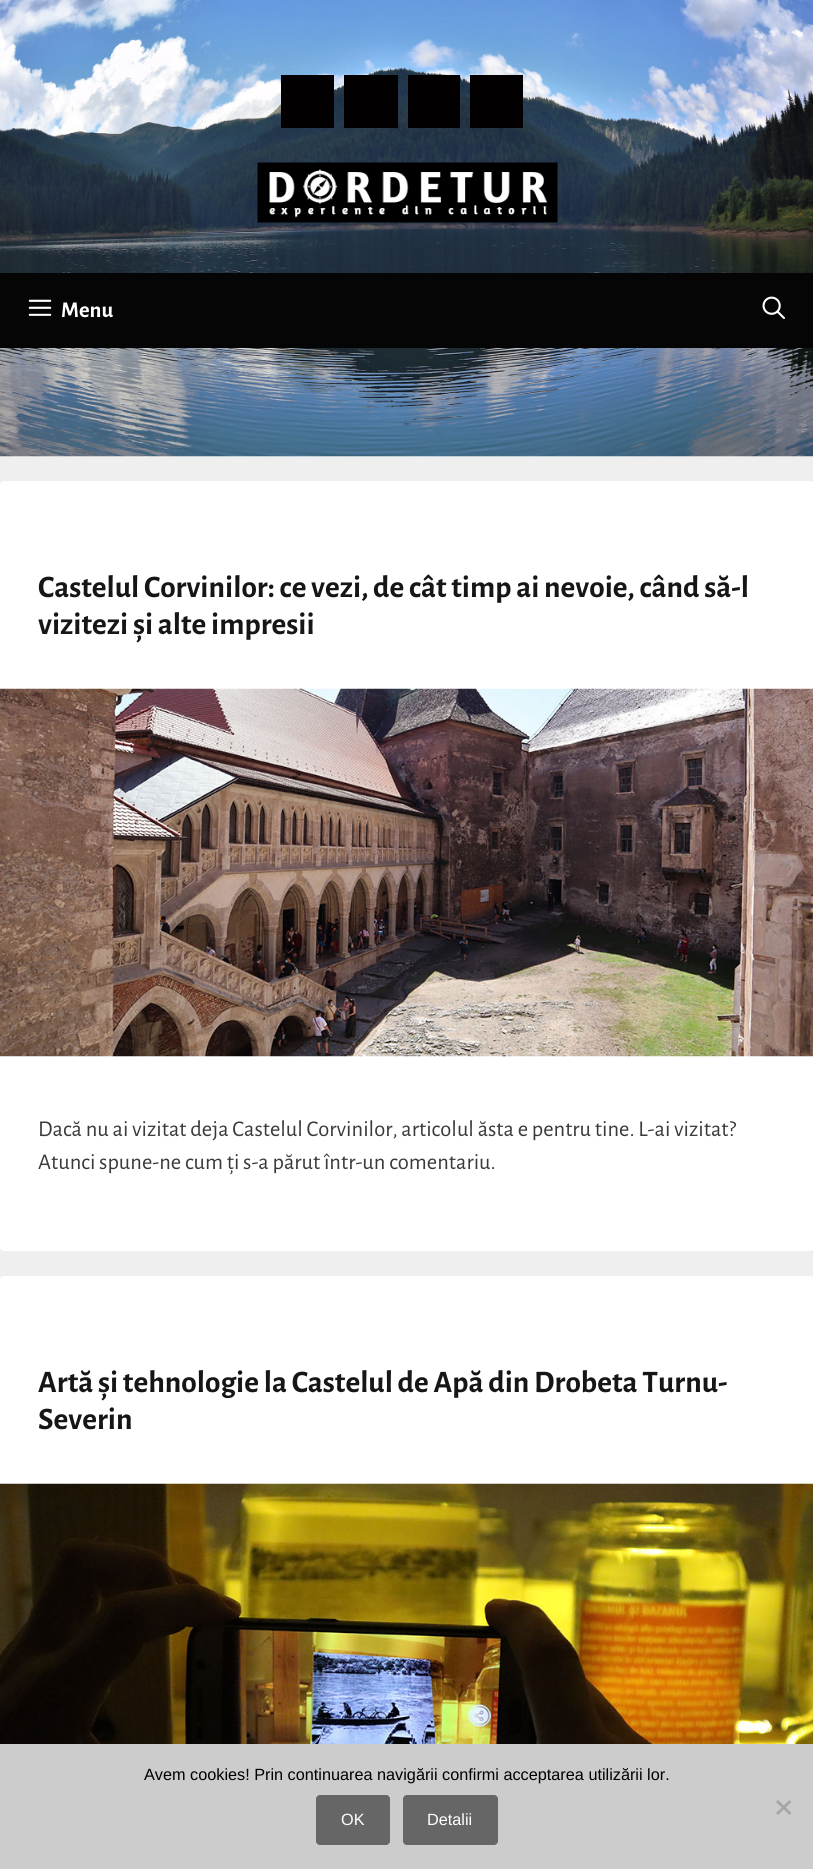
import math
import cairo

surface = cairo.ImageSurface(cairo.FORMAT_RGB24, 813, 1869)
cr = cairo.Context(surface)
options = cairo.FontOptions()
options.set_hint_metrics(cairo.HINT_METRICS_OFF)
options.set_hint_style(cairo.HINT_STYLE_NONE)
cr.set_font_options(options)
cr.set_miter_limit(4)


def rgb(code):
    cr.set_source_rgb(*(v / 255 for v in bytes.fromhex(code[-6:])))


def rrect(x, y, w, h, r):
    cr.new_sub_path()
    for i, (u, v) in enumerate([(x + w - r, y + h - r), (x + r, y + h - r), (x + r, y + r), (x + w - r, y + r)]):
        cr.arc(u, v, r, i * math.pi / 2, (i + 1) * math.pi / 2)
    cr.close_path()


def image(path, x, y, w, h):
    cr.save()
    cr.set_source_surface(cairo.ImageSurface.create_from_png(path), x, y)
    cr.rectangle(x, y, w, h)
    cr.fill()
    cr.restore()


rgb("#efefef")
cr.paint()
image("img/1.png", 0, 0, 813, 457)
for x, y, w, h, color in [
    (281, 75, 53, 53, "#020000"),
    (344, 75, 54, 53, "#020000"),
    (408, 75, 52, 53, "#020000"),
    (470, 75, 53, 53, "#020000"),
]:
    rgb(color)
    cr.rectangle(x, y, w, h)
    cr.fill()
image("img/2.png", 257, 162, 301, 61)
rgb("#050505")
cr.rectangle(0, 273, 813, 75)
cr.fill()
image("img/3.png", 28, 299, 24, 17)
image("img/4.png", 762, 296, 23, 23)
rgb("#ffffff")
rrect(0, 481, 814, 770, 4)
cr.fill()
image("img/5.png", 0, 688, 813, 369)
rrect(0, 1276, 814, 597, 4)
cr.fill()
image("img/6.png", 0, 1483, 813, 261)
rgb("#cccccc")
cr.rectangle(0, 1744, 813, 125)
cr.fill()
rgb("#a6a6a6")
cr.new_path()
cr.move_to(789.5, 1800)
cr.line_to(791.5, 1802)
cr.line_to(778, 1815)
cr.line_to(776, 1813)
cr.close_path()
cr.fill()
cr.new_path()
cr.move_to(776, 1802)
cr.line_to(778, 1800)
cr.line_to(791.5, 1813)
cr.line_to(789.5, 1815)
cr.close_path()
cr.fill()
rgb("#666666")
rrect(316, 1795, 74, 50, 4)
cr.fill()
rrect(403, 1795, 95, 50, 4)
cr.fill()
cr.select_font_face("Alegreya Sans", cairo.FONT_SLANT_NORMAL, cairo.FONT_WEIGHT_BOLD)
cr.set_font_size(22.5)
rgb("#ffffff")
cr.move_to(61, 317)
cr.show_text("Menu")
cr.set_font_size(31.25)
rgb("#161616")
cr.move_to(38, 597)
cr.show_text("Castelul Corvinilor: ce vezi, de cât timp ai nevoie, când să-l")
cr.move_to(38, 634)
cr.show_text("vizitezi și alte impresii")
cr.select_font_face("Alegreya Sans")
cr.set_font_size(22.5)
rgb("#3a3a3a")
cr.move_to(38, 1136)
cr.show_text("Dacă nu ai vizitat deja Castelul Corvinilor, articolul ăsta e pentru tine. L-ai vizitat?")
cr.move_to(38, 1169)
cr.show_text("Atunci spune-ne cum ți s-a părut într-un comentariu.")
cr.select_font_face("Alegreya Sans", cairo.FONT_SLANT_NORMAL, cairo.FONT_WEIGHT_BOLD)
cr.set_font_size(31.25)
rgb("#161616")
cr.move_to(38, 1392)
cr.show_text("Artă și tehnologie la Castelul de Apă din Drobeta Turnu-")
cr.move_to(38, 1429)
cr.show_text("Severin")
cr.select_font_face("Liberation Sans")
cr.set_font_size(16.25)
rgb("#000000")
cr.move_to(144, 1780)
cr.show_text("Avem cookies! Prin continuarea navigării confirmi acceptarea utilizării lor.")
rgb("#ffffff")
cr.move_to(341, 1825)
cr.show_text("OK")
cr.move_to(427, 1825)
cr.show_text("Detalii")
surface.write_to_png("page.png")
